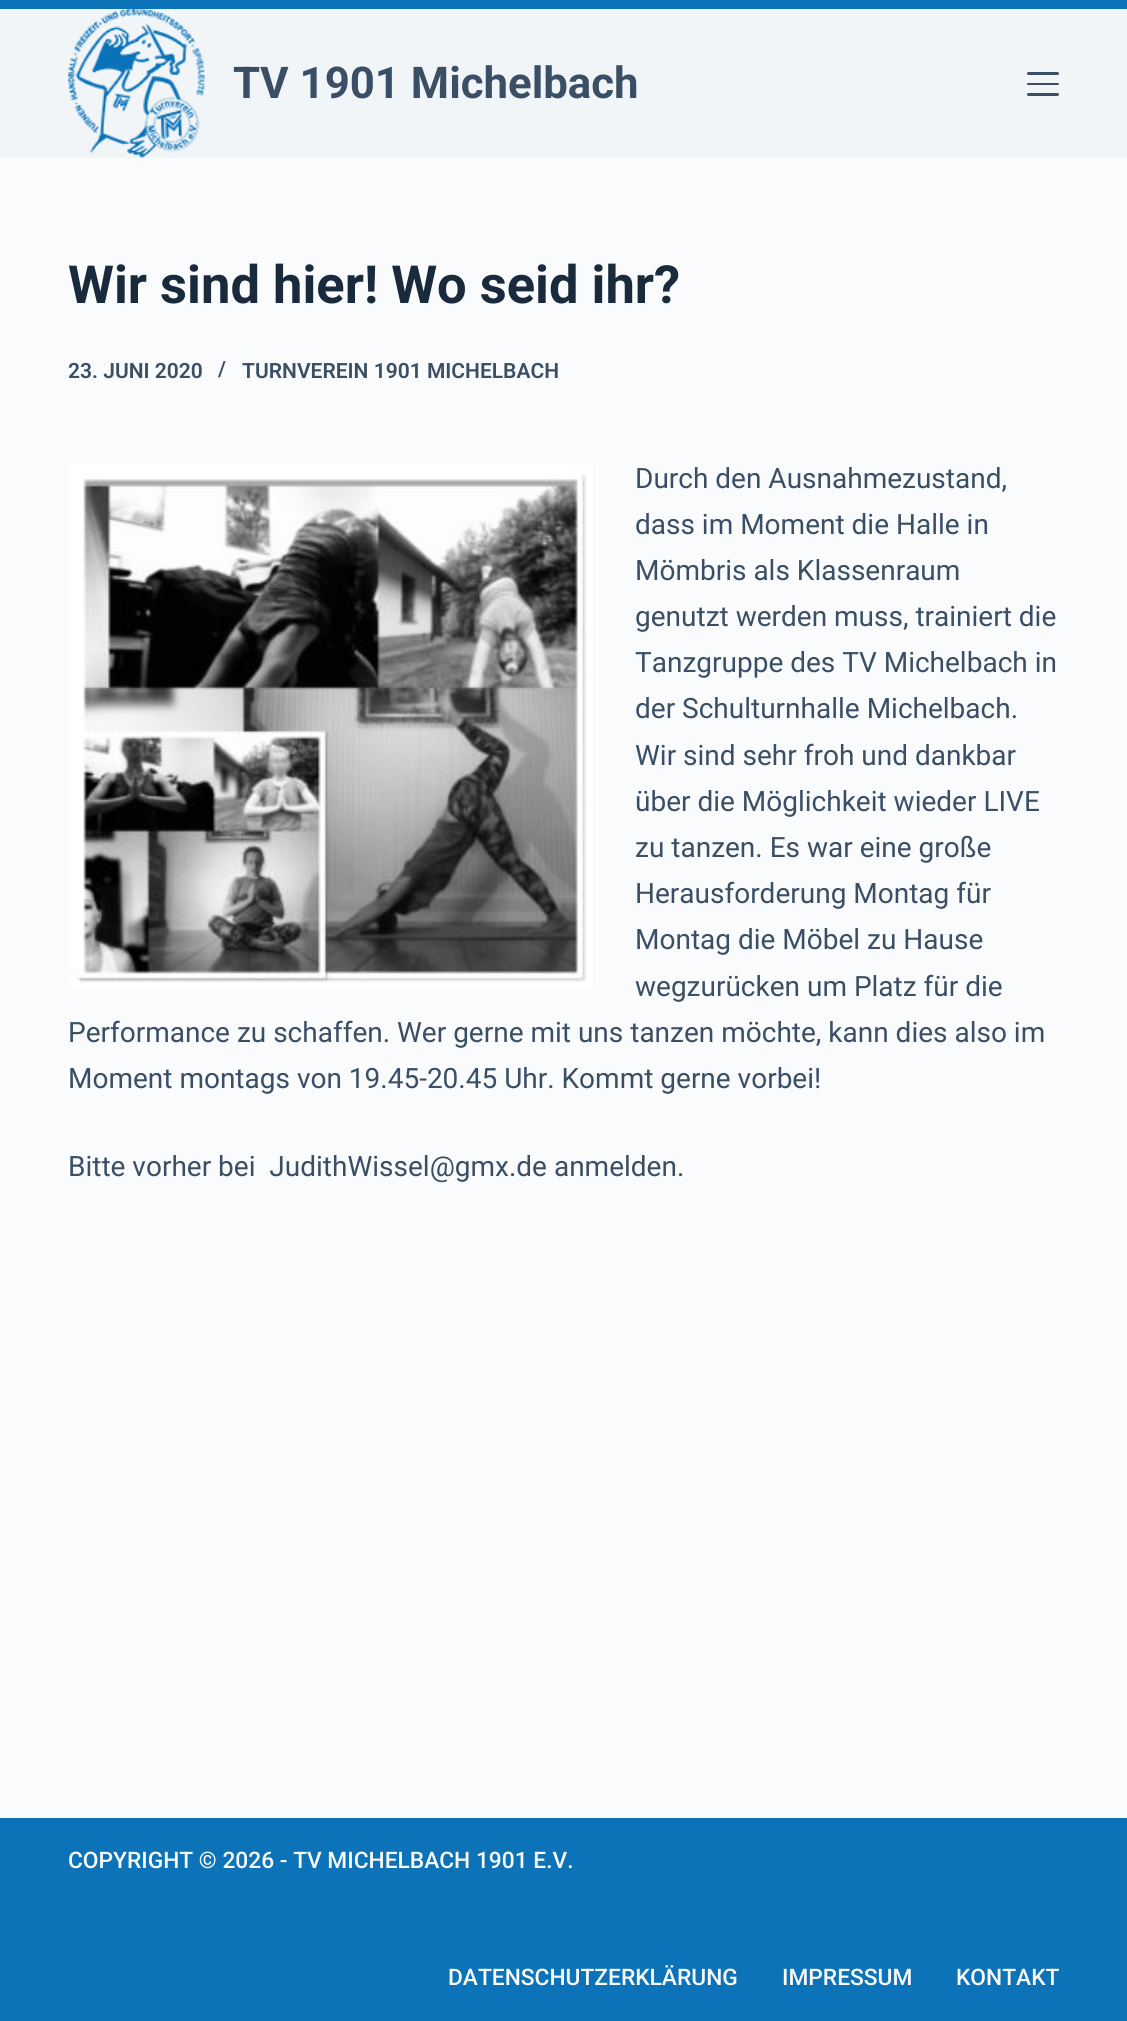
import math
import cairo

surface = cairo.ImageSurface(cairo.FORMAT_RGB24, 1127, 2021)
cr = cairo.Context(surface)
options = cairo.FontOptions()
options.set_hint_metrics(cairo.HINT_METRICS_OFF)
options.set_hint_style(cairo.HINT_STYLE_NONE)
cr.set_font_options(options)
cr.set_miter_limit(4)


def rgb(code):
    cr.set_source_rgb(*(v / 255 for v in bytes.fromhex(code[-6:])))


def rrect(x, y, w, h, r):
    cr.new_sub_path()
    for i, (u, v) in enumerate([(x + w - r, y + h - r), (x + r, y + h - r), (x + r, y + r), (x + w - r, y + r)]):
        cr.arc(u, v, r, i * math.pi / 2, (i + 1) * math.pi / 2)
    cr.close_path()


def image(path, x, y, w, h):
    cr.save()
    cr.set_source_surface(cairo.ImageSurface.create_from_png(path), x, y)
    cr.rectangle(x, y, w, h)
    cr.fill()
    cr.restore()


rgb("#fafbfc")
cr.paint()
rgb("#f2f5f7")
cr.rectangle(0, 9, 1127, 149)
cr.fill()
rgb("#0d73b9")
cr.rectangle(0, 0, 1127, 9)
cr.fill()
image("img/1.png", 68, 9, 137, 149)
rgb("#3a4f66")
rrect(1027, 72, 32, 3, 1.5)
cr.fill()
rrect(1027, 83, 32, 2, 1)
cr.fill()
rrect(1027, 93, 32, 3, 1.5)
cr.fill()
image("img/2.png", 69, 464, 524, 524)
rgb("#0d73b9")
cr.rectangle(0, 1818, 1127, 203)
cr.fill()
cr.select_font_face("Roboto", cairo.FONT_SLANT_NORMAL, cairo.FONT_WEIGHT_BOLD)
cr.set_font_size(43.75)
rgb("#3a4f66")
cr.move_to(233, 98)
cr.show_text("TV 1901 Michelbach")
cr.set_font_size(52.5)
rgb("#192a3d")
cr.move_to(68, 303)
cr.show_text("Wir sind hier! Wo seid ihr?")
cr.select_font_face("Roboto SemiBold")
cr.set_font_size(21)
rgb("#3a4f66")
for x, y, s in [
    (68, 378, "23. JUNI 2020"),
    (218, 376, "/"),
    (242, 378, "TURNVEREIN 1901 MICHELBACH"),
]:
    cr.move_to(x, y)
    cr.show_text(s)
cr.select_font_face("Roboto")
cr.set_font_size(28)
for x, y, s in [
    (635, 488, "Durch den Ausnahmezustand,"),
    (635, 534, "dass im Moment die Halle in"),
    (635, 580, "Mömbris als Klassenraum"),
    (635, 626, "genutzt werden muss, trainiert die"),
    (635, 672, "Tanzgruppe des TV Michelbach in"),
    (635, 718, "der Schulturnhalle Michelbach."),
    (635, 765, "Wir sind sehr froh und dankbar"),
    (635, 811, "über die Möglichkeit wieder LIVE"),
    (635, 857, "zu tanzen. Es war eine große"),
    (635, 903, "Herausforderung Montag für"),
    (635, 949, "Montag die Möbel zu Hause"),
    (635, 996, "wegzurücken um Platz für die"),
    (68, 1042, "Performance zu schaffen. Wer gerne mit uns tanzen möchte, kann dies also im"),
    (68, 1088, "Moment montags von 19.45-20.45 Uhr. Kommt gerne vorbei!"),
    (68, 1176, "Bitte vorher bei  JudithWissel@gmx.de anmelden."),
]:
    cr.move_to(x, y)
    cr.show_text(s)
cr.select_font_face("Roboto Medium")
cr.set_font_size(22.75)
rgb("#fafbfc")
for x, y, s in [
    (68, 1868, "COPYRIGHT © 2026 - TV MICHELBACH 1901 E.V."),
    (448, 1985, "DATENSCHUTZERKLÄRUNG"),
    (782, 1985, "IMPRESSUM"),
    (956, 1985, "KONTAKT"),
]:
    cr.move_to(x, y)
    cr.show_text(s)
surface.write_to_png("page.png")
